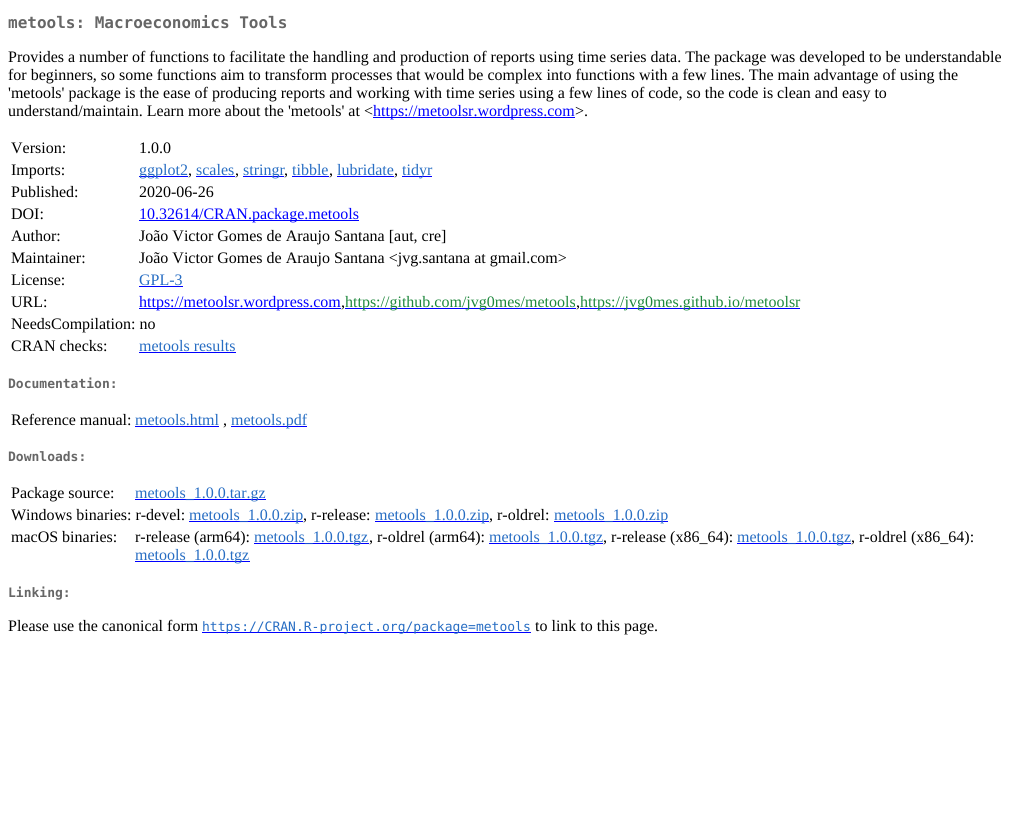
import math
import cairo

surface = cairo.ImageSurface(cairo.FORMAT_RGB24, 1017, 839)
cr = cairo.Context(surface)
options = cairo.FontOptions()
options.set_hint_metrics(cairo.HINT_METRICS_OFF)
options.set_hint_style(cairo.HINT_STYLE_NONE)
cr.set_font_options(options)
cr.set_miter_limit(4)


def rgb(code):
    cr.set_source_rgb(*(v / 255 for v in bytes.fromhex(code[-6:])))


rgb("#ffffff")
cr.paint()
for x, y, w, h, color in [
    (373, 117, 202, 1, "#0000ff"),
    (139, 176, 49, 1, "#0000ff"),
    (196, 176, 39, 1, "#0000ff"),
    (243, 176, 41, 1, "#0000ff"),
    (292, 176, 37, 1, "#0000ff"),
    (337, 176, 57, 1, "#0000ff"),
    (402, 176, 30, 1, "#0000ff"),
    (139, 220, 220, 1, "#0000ff"),
    (139, 286, 44, 1, "#0000ff"),
    (139, 308, 202, 1, "#0000ff"),
    (345, 308, 231, 1, "#0000ff"),
    (580, 308, 220, 1, "#0000ff"),
    (139, 352, 97, 1, "#0000ff"),
    (135, 426, 84, 1, "#0000ff"),
    (231, 426, 76, 1, "#0000ff"),
    (135, 499, 131, 1, "#0000ff"),
    (189, 521, 114, 1, "#0000ff"),
    (375, 521, 114, 1, "#0000ff"),
    (554, 521, 114, 1, "#0000ff"),
    (254, 543, 115, 1, "#0000ff"),
    (489, 543, 114, 1, "#0000ff"),
    (737, 543, 114, 1, "#0000ff"),
    (135, 561, 115, 1, "#0000ff"),
    (202, 632, 329, 1, "#0000ff"),
]:
    rgb(color)
    cr.rectangle(x, y, w, h)
    cr.fill()
cr.select_font_face("DejaVu Sans Mono", cairo.FONT_SLANT_NORMAL, cairo.FONT_WEIGHT_BOLD)
cr.set_font_size(16)
rgb("#666666")
cr.move_to(8, 28)
cr.show_text("metools: Macroeconomics Tools")
cr.select_font_face("Liberation Serif")
rgb("#000000")
for x, y, s in [
    (8, 62, "Provides a number of functions to facilitate the handling and production of reports using time series data. The package was developed to be understandable"),
    (8, 80, "for beginners, so some functions aim to transform processes that would be complex into functions with a few lines. The main advantage of using the"),
    (8, 98, "'metools' package is the ease of producing reports and working with time series using a few lines of code, so the code is clean and easy to"),
    (8, 116, "understand/maintain. Learn more about the 'metools' at <"),
]:
    cr.move_to(x, y)
    cr.show_text(s)
rgb("#0000ff")
cr.move_to(373, 116)
cr.show_text("https://metoolsr.wordpress.com")
rgb("#000000")
for x, y, s in [
    (575, 116, ">."),
    (11, 153, "Version:"),
    (139, 153, "1.0.0"),
    (11, 175, "Imports:"),
]:
    cr.move_to(x, y)
    cr.show_text(s)
rgb("#276dc3")
cr.move_to(139, 175)
cr.show_text("ggplot2")
rgb("#000000")
cr.move_to(188, 175)
cr.show_text(",")
rgb("#276dc3")
cr.move_to(196, 175)
cr.show_text("scales")
rgb("#000000")
cr.move_to(235, 175)
cr.show_text(",")
rgb("#276dc3")
cr.move_to(243, 175)
cr.show_text("stringr")
rgb("#000000")
cr.move_to(284, 175)
cr.show_text(",")
rgb("#276dc3")
cr.move_to(292, 175)
cr.show_text("tibble")
rgb("#000000")
cr.move_to(329, 175)
cr.show_text(",")
rgb("#276dc3")
cr.move_to(337, 175)
cr.show_text("lubridate")
rgb("#000000")
cr.move_to(394, 175)
cr.show_text(",")
rgb("#276dc3")
cr.move_to(402, 175)
cr.show_text("tidyr")
rgb("#000000")
for x, y, s in [
    (11, 197, "Published:"),
    (139, 197, "2020-06-26"),
    (11, 219, "DOI:"),
]:
    cr.move_to(x, y)
    cr.show_text(s)
rgb("#0000ff")
cr.move_to(139, 219)
cr.show_text("10.32614/CRAN.package.metools")
rgb("#000000")
for x, y, s in [
    (11, 241, "Author:"),
    (139, 241, "João Victor Gomes de Araujo Santana [aut, cre]"),
    (11, 263, "Maintainer:"),
    (139, 263, "João Victor Gomes de Araujo Santana <jvg.santana at gmail.com>"),
    (11, 285, "License:"),
]:
    cr.move_to(x, y)
    cr.show_text(s)
rgb("#276dc3")
cr.move_to(139, 285)
cr.show_text("GPL-3")
rgb("#000000")
cr.move_to(11, 307)
cr.show_text("URL:")
rgb("#0000ff")
cr.move_to(139, 307)
cr.show_text("https://metoolsr.wordpress.com")
rgb("#000000")
cr.move_to(341, 307)
cr.show_text(",")
rgb("#1f883d")
cr.move_to(345, 307)
cr.show_text("https://github.com/jvg0mes/metools")
rgb("#000000")
cr.move_to(576, 307)
cr.show_text(",")
rgb("#1f883d")
cr.move_to(580, 307)
cr.show_text("https://jvg0mes.github.io/metoolsr")
rgb("#000000")
cr.move_to(11, 329)
cr.show_text("NeedsCompilation: no")
cr.move_to(11, 351)
cr.show_text("CRAN checks:")
rgb("#276dc3")
cr.move_to(139, 351)
cr.show_text("metools results")
cr.select_font_face("DejaVu Sans Mono", cairo.FONT_SLANT_NORMAL, cairo.FONT_WEIGHT_BOLD)
cr.set_font_size(13)
rgb("#666666")
cr.move_to(8, 388)
cr.show_text("Documentation:")
cr.select_font_face("Liberation Serif")
cr.set_font_size(16)
rgb("#000000")
cr.move_to(11, 425)
cr.show_text("Reference manual:")
rgb("#276dc3")
cr.move_to(135, 425)
cr.show_text("metools.html")
rgb("#000000")
cr.move_to(223, 425)
cr.show_text(",")
rgb("#276dc3")
cr.move_to(231, 425)
cr.show_text("metools.pdf")
cr.select_font_face("DejaVu Sans Mono", cairo.FONT_SLANT_NORMAL, cairo.FONT_WEIGHT_BOLD)
cr.set_font_size(13)
rgb("#666666")
cr.move_to(8, 461)
cr.show_text("Downloads:")
cr.select_font_face("Liberation Serif")
cr.set_font_size(16)
rgb("#000000")
cr.move_to(11, 498)
cr.show_text("Package source:")
rgb("#276dc3")
cr.move_to(135, 498)
cr.show_text("metools_1.0.0.tar.gz")
rgb("#000000")
cr.move_to(11, 520)
cr.show_text("Windows binaries: r-devel:")
rgb("#276dc3")
cr.move_to(189, 520)
cr.show_text("metools_1.0.0.zip")
rgb("#000000")
cr.move_to(303, 520)
cr.show_text(", r-release:")
rgb("#276dc3")
cr.move_to(375, 520)
cr.show_text("metools_1.0.0.zip")
rgb("#000000")
cr.move_to(489, 520)
cr.show_text(", r-oldrel:")
rgb("#276dc3")
cr.move_to(554, 520)
cr.show_text("metools_1.0.0.zip")
rgb("#000000")
cr.move_to(11, 542)
cr.show_text("macOS binaries:")
cr.move_to(135, 542)
cr.show_text("r-release (arm64):")
rgb("#276dc3")
cr.move_to(254, 542)
cr.show_text("metools_1.0.0.tgz")
rgb("#000000")
cr.move_to(369, 542)
cr.show_text(", r-oldrel (arm64):")
rgb("#276dc3")
cr.move_to(489, 542)
cr.show_text("metools_1.0.0.tgz")
rgb("#000000")
cr.move_to(603, 542)
cr.show_text(", r-release (x86_64):")
rgb("#276dc3")
cr.move_to(737, 542)
cr.show_text("metools_1.0.0.tgz")
rgb("#000000")
cr.move_to(851, 542)
cr.show_text(", r-oldrel (x86_64):")
rgb("#276dc3")
cr.move_to(135, 560)
cr.show_text("metools_1.0.0.tgz")
cr.select_font_face("DejaVu Sans Mono", cairo.FONT_SLANT_NORMAL, cairo.FONT_WEIGHT_BOLD)
cr.set_font_size(13)
rgb("#666666")
cr.move_to(8, 597)
cr.show_text("Linking:")
cr.select_font_face("Liberation Serif")
cr.set_font_size(16)
rgb("#000000")
cr.move_to(8, 631)
cr.show_text("Please use the canonical form")
cr.select_font_face("DejaVu Sans Mono")
cr.set_font_size(13)
rgb("#276dc3")
cr.move_to(202, 631)
cr.show_text("https://CRAN.R-project.org/package=metools")
cr.select_font_face("Liberation Serif")
cr.set_font_size(16)
rgb("#000000")
cr.move_to(535, 631)
cr.show_text("to link to this page.")
surface.write_to_png("page.png")
